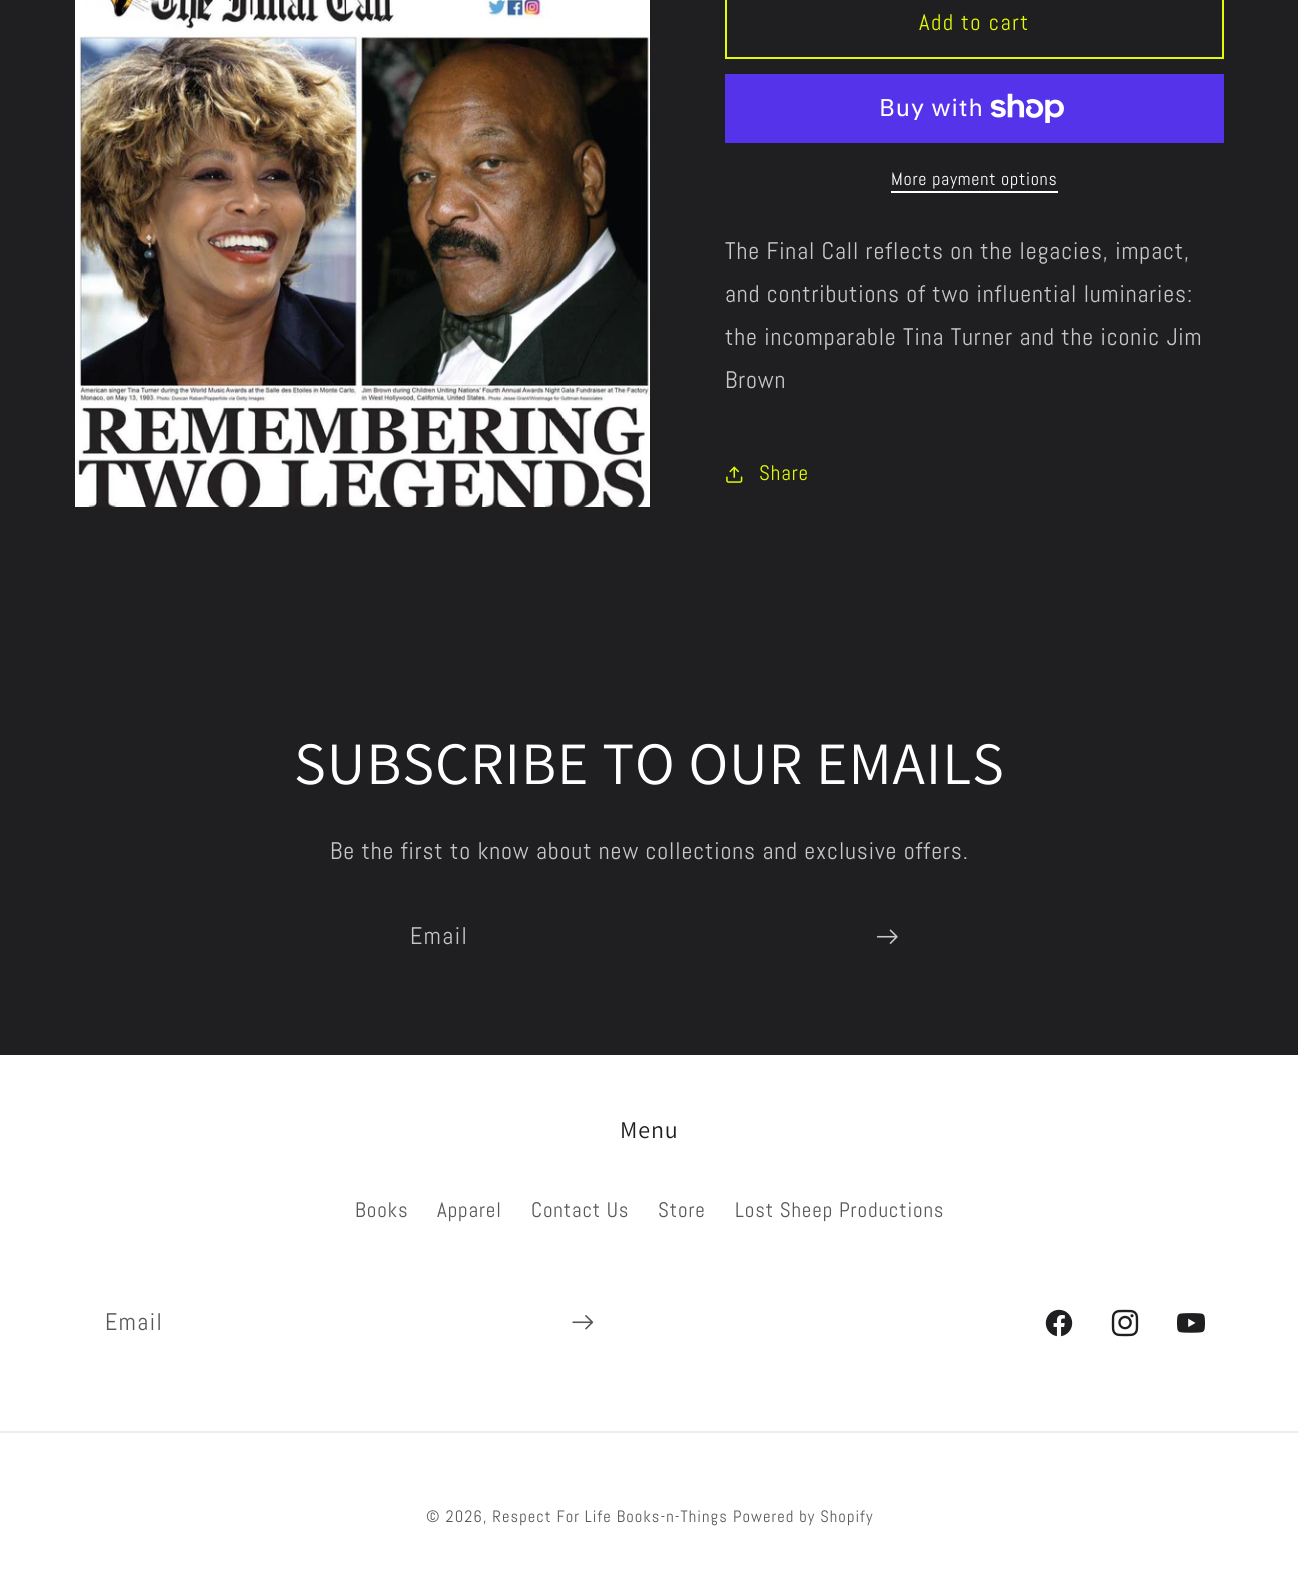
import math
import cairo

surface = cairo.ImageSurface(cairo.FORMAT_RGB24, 1298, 1591)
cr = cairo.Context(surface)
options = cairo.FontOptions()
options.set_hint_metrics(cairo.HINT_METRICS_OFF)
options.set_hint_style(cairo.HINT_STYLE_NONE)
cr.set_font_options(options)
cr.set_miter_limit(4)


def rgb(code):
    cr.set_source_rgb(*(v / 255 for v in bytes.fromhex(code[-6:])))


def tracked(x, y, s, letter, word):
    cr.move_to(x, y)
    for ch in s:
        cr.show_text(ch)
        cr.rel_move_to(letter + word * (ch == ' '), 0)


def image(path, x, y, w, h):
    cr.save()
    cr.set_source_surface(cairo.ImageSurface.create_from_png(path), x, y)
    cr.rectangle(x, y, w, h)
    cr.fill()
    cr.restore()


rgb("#1f1f21")
cr.paint()
image("img/1.png", 75, 0, 575, 507)
cr.rectangle(726, -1, 497, 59)
rgb("#e3fc02")
cr.stroke()
rgb("#5433eb")
cr.rectangle(725, 74, 499, 69)
cr.fill()
image("img/2.png", 990, 93, 74, 30)
rgb("#ffffff")
cr.rectangle(891, 191, 167, 2)
cr.fill()
image("img/3.png", 726, 466, 17, 17)
image("img/4.png", 876, 929, 22, 15)
cr.rectangle(0, 1055, 1298, 536)
cr.fill()
image("img/5.png", 572, 1315, 22, 15)
image("img/6.png", 1045, 1309, 28, 28)
image("img/7.png", 1111, 1309, 28, 28)
image("img/8.png", 1177, 1313, 28, 20)
rgb("#ededed")
cr.rectangle(0, 1431, 1298, 2)
cr.fill()
cr.select_font_face("Abel")
cr.set_font_size(22.5)
rgb("#e3fc02")
tracked(919, 30, "Add to cart", 1.5, 0)
cr.select_font_face("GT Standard")
cr.set_font_size(24)
rgb("#ffffff")
tracked(879, 116, "Buy with", 0.9, 0)
cr.select_font_face("Abel")
cr.set_font_size(18)
tracked(891, 185, "More payment options", 0.75, 0)
cr.set_font_size(24)
rgb("#c7c7c8")
for x, y, s in [
    (725, 259, "The Final Call reflects on the legacies, impact,"),
    (725, 302, "and contributions of two influential luminaries:"),
    (725, 345, "the incomparable Tina Turner and the iconic Jim"),
    (725, 388, "Brown"),
]:
    tracked(x, y, s, 0.9, 0)
cr.set_font_size(21)
rgb("#e3fc02")
tracked(759, 480, "Share", 0.9, 0)
cr.select_font_face("Assistant")
cr.set_font_size(60)
rgb("#ffffff")
tracked(294, 784, "SUBSCRIBE TO OUR EMAILS", 0.9, 0)
cr.select_font_face("Abel")
cr.set_font_size(24)
rgb("#c7c7c8")
tracked(330, 859, "Be the first to know about new collections and exclusive offers.", 0.9, 0)
tracked(410, 944, "Email", 1.5, 0)
cr.select_font_face("Assistant")
rgb("#1f1f21")
tracked(620, 1138, "Menu", 0.9, 0)
cr.select_font_face("Abel")
cr.set_font_size(21)
rgb("#575759")
for x, y, s in [
    (355, 1217, "Books"),
    (437, 1217, "Apparel"),
    (531, 1217, "Contact Us"),
    (658, 1217, "Store"),
    (735, 1217, "Lost Sheep Productions"),
]:
    tracked(x, y, s, 0.9, 0)
cr.set_font_size(24)
tracked(105, 1330, "Email", 1.5, 0)
cr.set_font_size(16.5)
tracked(426, 1522, "© 2026, Respect For Life Books-n-Things", 1.05, 0)
tracked(733, 1522, "Powered by Shopify", 1.05, 0)
surface.write_to_png("page.png")
